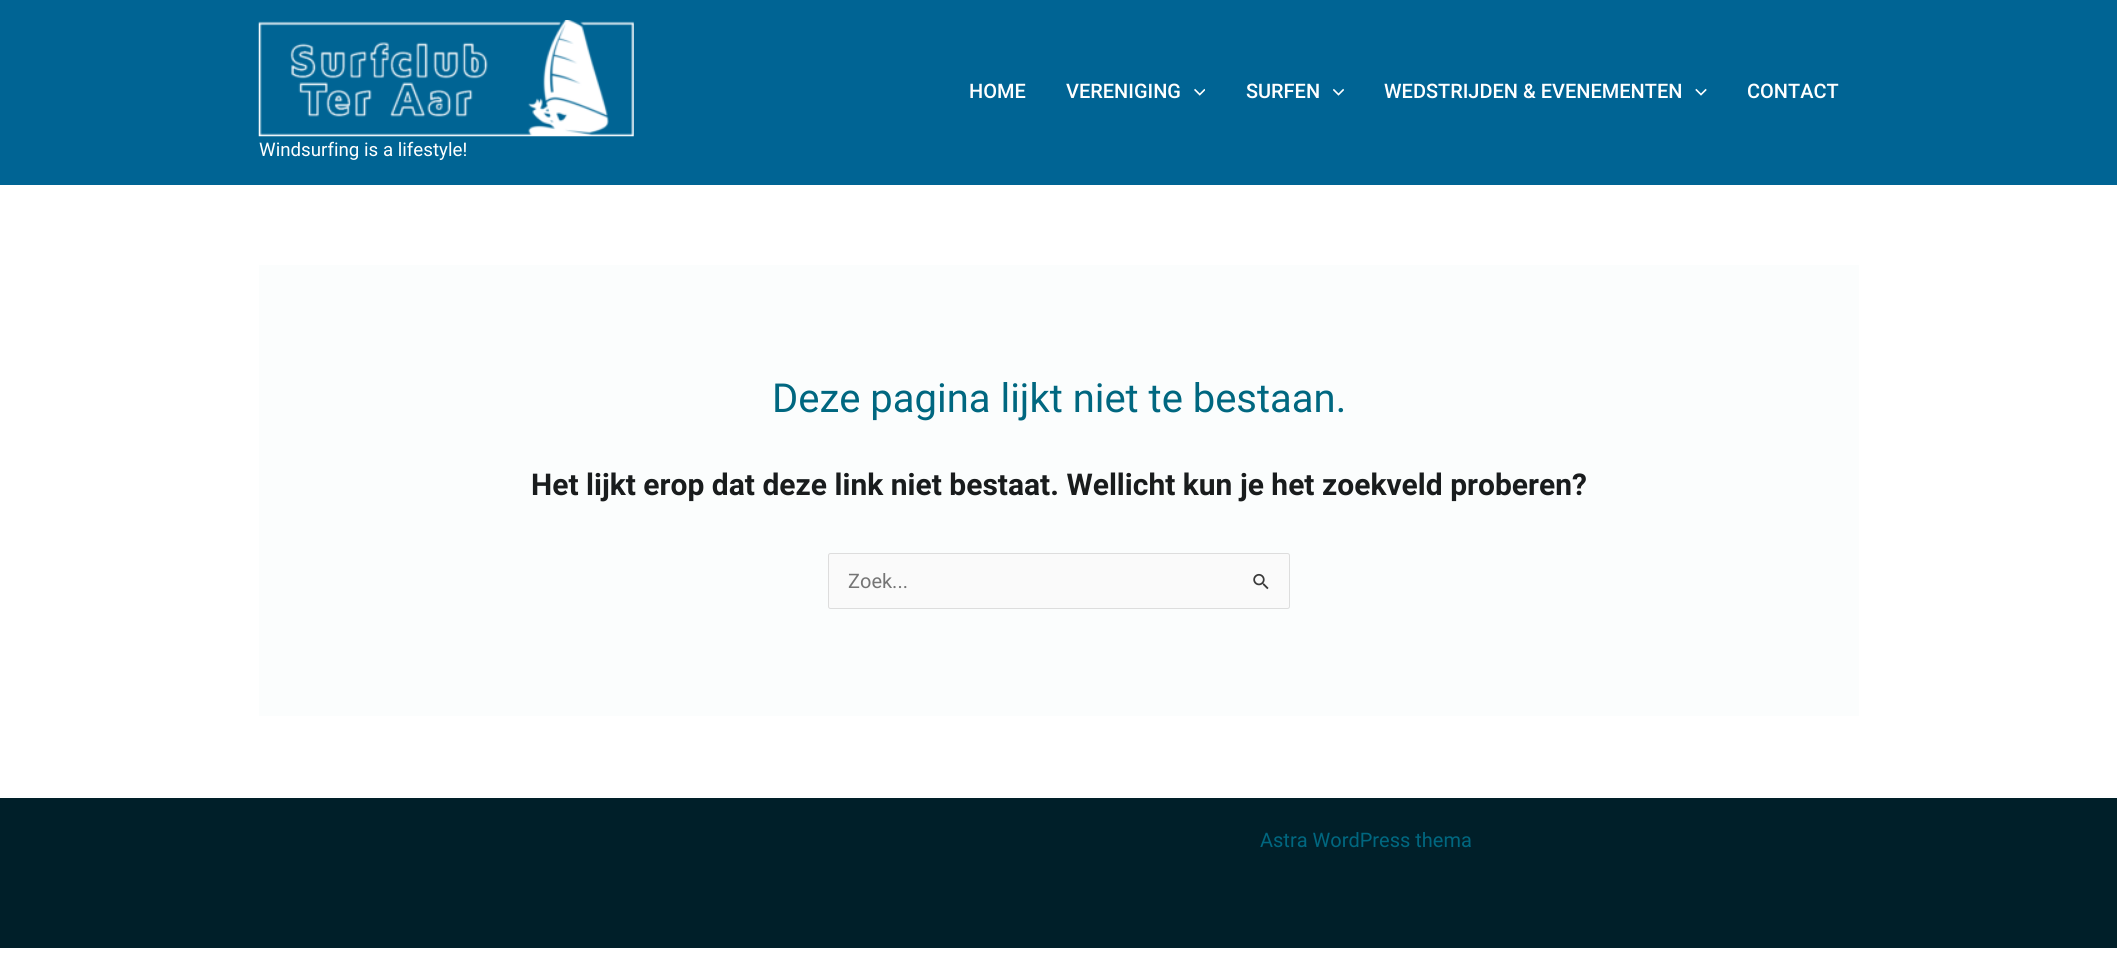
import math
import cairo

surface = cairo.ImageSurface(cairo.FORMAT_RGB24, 2117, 978)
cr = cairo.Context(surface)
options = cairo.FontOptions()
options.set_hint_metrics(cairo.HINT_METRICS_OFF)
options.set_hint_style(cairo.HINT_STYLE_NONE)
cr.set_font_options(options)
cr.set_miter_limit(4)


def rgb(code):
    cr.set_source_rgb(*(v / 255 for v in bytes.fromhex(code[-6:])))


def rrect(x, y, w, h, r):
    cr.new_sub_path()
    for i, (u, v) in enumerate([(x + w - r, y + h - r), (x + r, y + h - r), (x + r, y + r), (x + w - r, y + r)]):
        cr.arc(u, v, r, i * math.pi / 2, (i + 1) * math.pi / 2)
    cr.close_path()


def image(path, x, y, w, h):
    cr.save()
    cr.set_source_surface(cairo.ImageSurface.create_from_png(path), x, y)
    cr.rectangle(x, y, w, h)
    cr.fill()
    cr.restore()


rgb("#ffffff")
cr.paint()
rgb("#006494")
cr.rectangle(0, 0, 2117, 185)
cr.fill()
image("img/1.png", 1194, 88, 11, 8)
image("img/2.png", 1333, 88, 11, 8)
image("img/3.png", 1695, 88, 12, 8)
image("img/4.png", 258, 20, 376, 117)
rgb("#fbfdfd")
cr.rectangle(259, 265, 1600, 451)
cr.fill()
rgb("#fafafa")
rrect(828.5, 553.5, 461, 55, 2)
cr.fill_preserve()
rgb("#dddddd")
cr.set_line_width(1)
cr.stroke()
image("img/5.png", 1253, 573, 16, 17)
rgb("#001f29")
cr.rectangle(0, 798, 2117, 150)
cr.fill()
rgb("#fbfdfd")
cr.rectangle(0, 796, 2117, 1)
cr.fill()
cr.select_font_face("Roboto Medium")
cr.set_font_size(20)
rgb("#ffffff")
for x, y, s in [
    (969, 98, "HOME"),
    (1066, 98, "VERENIGING"),
    (1246, 98, "SURFEN"),
    (1384, 98, "WEDSTRIJDEN & EVENEMENTEN"),
    (1747, 98, "CONTACT"),
]:
    cr.move_to(x, y)
    cr.show_text(s)
cr.select_font_face("Roboto")
cr.set_font_size(18.75)
cr.move_to(259, 156)
cr.show_text("Windsurfing is a lifestyle!")
cr.set_font_size(40)
rgb("#006780")
cr.move_to(772, 412)
cr.show_text("Deze pagina lijkt niet te bestaan.")
cr.select_font_face("Roboto", cairo.FONT_SLANT_NORMAL, cairo.FONT_WEIGHT_BOLD)
cr.set_font_size(30)
rgb("#191c1d")
cr.move_to(531, 495)
cr.show_text("Het lijkt erop dat deze link niet bestaat. Wellicht kun je het zoekveld proberen?")
cr.select_font_face("Roboto")
cr.set_font_size(20)
rgb("#757575")
cr.move_to(848, 588)
cr.show_text("Zoek...")
rgb("#006780")
cr.move_to(1260, 847)
cr.show_text("Astra WordPress thema")
surface.write_to_png("page.png")
